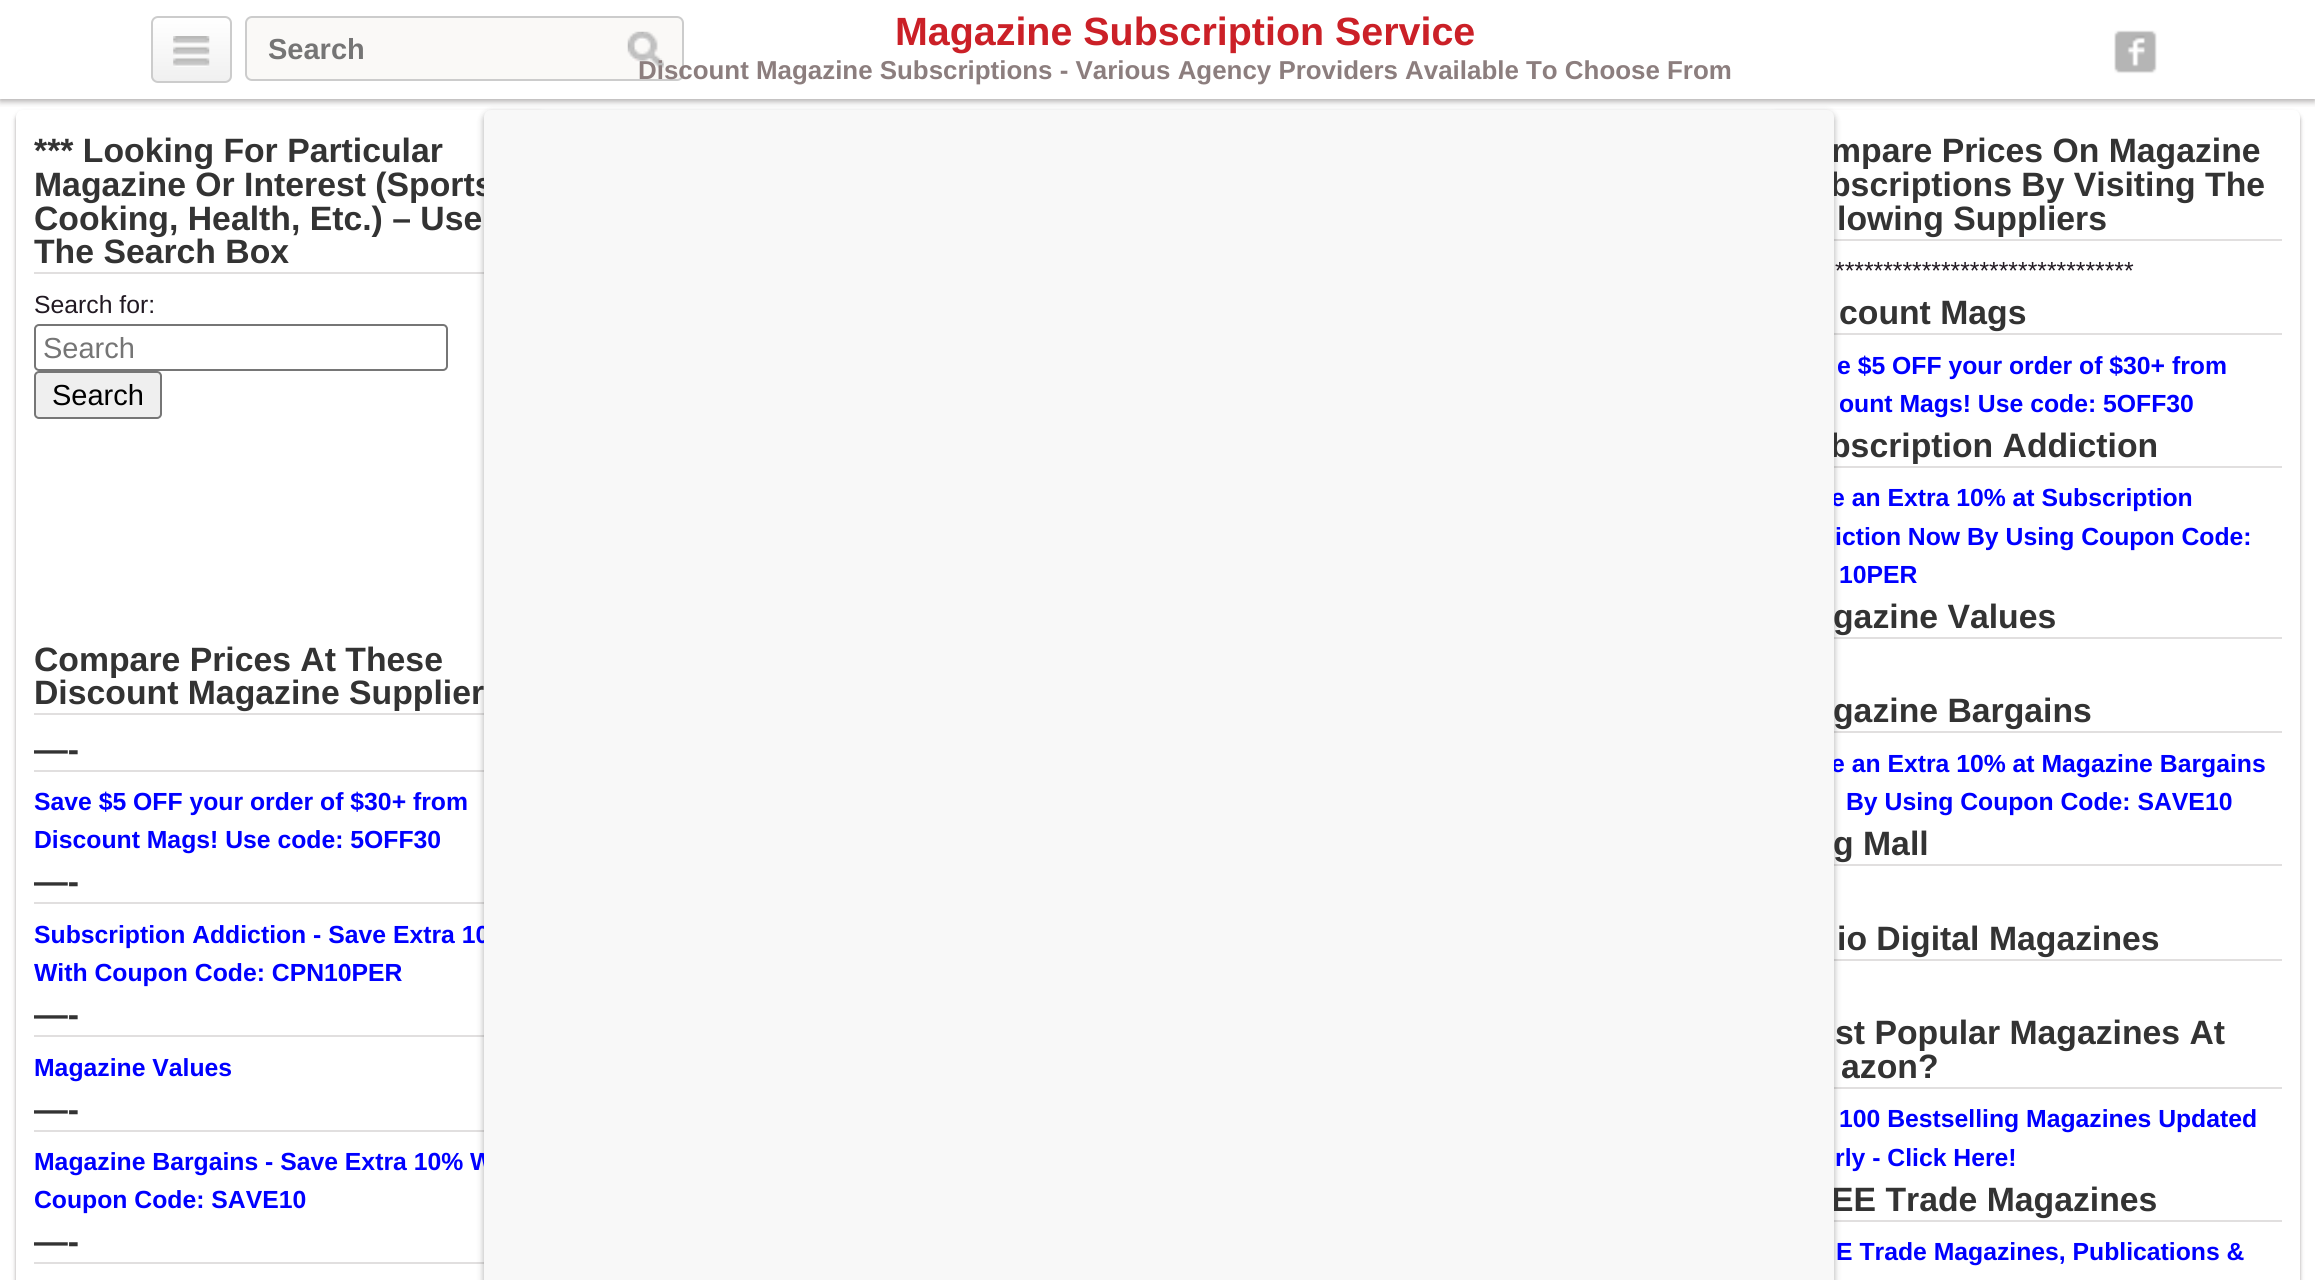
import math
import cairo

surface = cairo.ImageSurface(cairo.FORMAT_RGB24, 2315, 1280)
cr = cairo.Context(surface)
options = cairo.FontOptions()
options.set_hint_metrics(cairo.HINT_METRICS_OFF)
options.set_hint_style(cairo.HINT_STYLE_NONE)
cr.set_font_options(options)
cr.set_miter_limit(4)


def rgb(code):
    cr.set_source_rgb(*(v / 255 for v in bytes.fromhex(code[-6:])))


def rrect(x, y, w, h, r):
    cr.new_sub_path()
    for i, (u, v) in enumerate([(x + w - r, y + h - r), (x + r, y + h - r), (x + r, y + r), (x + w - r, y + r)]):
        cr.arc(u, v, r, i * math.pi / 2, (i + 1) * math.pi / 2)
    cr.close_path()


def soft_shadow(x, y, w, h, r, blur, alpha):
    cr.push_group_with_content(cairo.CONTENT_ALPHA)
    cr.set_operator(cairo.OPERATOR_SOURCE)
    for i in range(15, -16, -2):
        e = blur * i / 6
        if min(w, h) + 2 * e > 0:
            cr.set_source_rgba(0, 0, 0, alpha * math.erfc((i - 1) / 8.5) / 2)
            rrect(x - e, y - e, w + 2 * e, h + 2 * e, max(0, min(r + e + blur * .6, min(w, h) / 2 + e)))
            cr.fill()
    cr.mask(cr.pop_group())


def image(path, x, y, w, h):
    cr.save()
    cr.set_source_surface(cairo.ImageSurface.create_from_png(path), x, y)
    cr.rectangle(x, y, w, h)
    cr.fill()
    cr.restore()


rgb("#ffffff")
cr.paint()
rgb("#221919")
soft_shadow(16, 113, 531, 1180, 7, 2, 0.4)
rgb("#ffffff")
rrect(16, 110, 531, 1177, 7)
cr.fill()
rgb("#e1dfdf")
cr.rectangle(34, 272, 450, 2)
cr.fill()
rrect(35, 325, 412, 45, 4)
rgb("#767676")
cr.stroke()
rgb("#efefef")
rrect(35, 372, 126, 46, 4)
cr.fill_preserve()
rgb("#767676")
cr.stroke()
for x, y, w, h, color in [
    (34, 713, 450, 2, "#e1dfdf"),
    (34, 770, 450, 2, "#e1dfdf"),
    (34, 902, 450, 2, "#e1dfdf"),
    (34, 1035, 450, 2, "#e1dfdf"),
    (34, 1130, 450, 2, "#e1dfdf"),
    (34, 1262, 450, 2, "#e1dfdf"),
]:
    rgb(color)
    cr.rectangle(x, y, w, h)
    cr.fill()
rgb("#221919")
soft_shadow(1769, 113, 531, 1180, 7, 2, 0.4)
rgb("#ffffff")
rrect(1769, 110, 531, 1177, 7)
cr.fill()
for x, y, w, h, color in [
    (1834, 239, 448, 2, "#e1dfdf"),
    (1834, 333, 448, 2, "#e1dfdf"),
    (1834, 466, 448, 2, "#e1dfdf"),
    (1834, 637, 448, 2, "#e1dfdf"),
    (1834, 731, 448, 2, "#e1dfdf"),
    (1834, 864, 448, 2, "#e1dfdf"),
    (1834, 959, 448, 2, "#e1dfdf"),
    (1834, 1087, 448, 2, "#e1dfdf"),
    (1834, 1220, 448, 2, "#e1dfdf"),
]:
    rgb(color)
    cr.rectangle(x, y, w, h)
    cr.fill()
rgb("#000000")
soft_shadow(484, 113, 1350, 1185, 7, 3.5, 0.33)
cr.select_font_face("Liberation Sans", cairo.FONT_SLANT_NORMAL, cairo.FONT_WEIGHT_BOLD)
cr.set_font_size(33.75)
rgb("#333333")
for x, y, s in [
    (34, 162, "*** Looking For Particular"),
    (34, 196, "Magazine Or Interest (Sports"),
    (34, 230, "Cooking, Health, Etc.) – Use"),
    (34, 263, "The Search Box"),
]:
    cr.move_to(x, y)
    cr.show_text(s)
cr.select_font_face("Liberation Sans")
cr.set_font_size(24.75)
rgb("#211922")
cr.move_to(34, 313)
cr.show_text("Search for:")
cr.set_font_size(29)
rgb("#757575")
cr.move_to(43, 358)
cr.show_text("Search")
rgb("#000000")
cr.move_to(52, 405)
cr.show_text("Search")
cr.select_font_face("Liberation Sans", cairo.FONT_SLANT_NORMAL, cairo.FONT_WEIGHT_BOLD)
cr.set_font_size(33.75)
rgb("#333333")
for x, y, s in [
    (34, 671, "Compare Prices At These"),
    (34, 704, "Discount Magazine Supplier"),
    (34, 761, "—-"),
]:
    cr.move_to(x, y)
    cr.show_text(s)
cr.set_font_size(24.75)
rgb("#0000ff")
cr.move_to(34, 810)
cr.show_text("Save $5 OFF your order of $30+ from")
cr.move_to(34, 848)
cr.show_text("Discount Mags! Use code: 5OFF30")
cr.set_font_size(33.75)
rgb("#333333")
cr.move_to(34, 893)
cr.show_text("—-")
cr.set_font_size(24.75)
rgb("#0000ff")
cr.move_to(34, 943)
cr.show_text("Subscription Addiction - Save Extra 10")
cr.move_to(34, 981)
cr.show_text("With Coupon Code: CPN10PER")
cr.set_font_size(33.75)
rgb("#333333")
cr.move_to(34, 1026)
cr.show_text("—-")
cr.set_font_size(24.75)
rgb("#0000ff")
cr.move_to(34, 1076)
cr.show_text("Magazine Values")
cr.set_font_size(33.75)
rgb("#333333")
cr.move_to(34, 1121)
cr.show_text("—-")
cr.set_font_size(24.75)
rgb("#0000ff")
cr.move_to(34, 1170)
cr.show_text("Magazine Bargains - Save Extra 10% W")
cr.move_to(34, 1208)
cr.show_text("Coupon Code: SAVE10")
cr.set_font_size(33.75)
rgb("#333333")
for x, y, s in [
    (34, 1253, "—-"),
    (1831, 162, "mpare Prices On Magazine"),
    (1830, 196, "bscriptions By Visiting The"),
    (1837, 230, "lowing Suppliers"),
]:
    cr.move_to(x, y)
    cr.show_text(s)
cr.select_font_face("Liberation Sans")
cr.set_font_size(24.75)
rgb("#211922")
cr.move_to(1835, 279)
cr.show_text("*******************************")
cr.select_font_face("Liberation Sans", cairo.FONT_SLANT_NORMAL, cairo.FONT_WEIGHT_BOLD)
cr.set_font_size(33.75)
rgb("#333333")
cr.move_to(1839, 324)
cr.show_text("count Mags")
cr.set_font_size(24.75)
rgb("#0000ff")
cr.move_to(1837, 374)
cr.show_text("e $5 OFF your order of $30+ from")
cr.move_to(1839, 412)
cr.show_text("ount Mags! Use code: 5OFF30")
cr.set_font_size(33.75)
rgb("#333333")
cr.move_to(1830, 457)
cr.show_text("bscription Addiction")
cr.set_font_size(24.75)
rgb("#0000ff")
for x, y, s in [
    (1831, 506, "e an Extra 10% at Subscription"),
    (1835, 545, "iction Now By Using Coupon Code:"),
    (1839, 583, "10PER"),
]:
    cr.move_to(x, y)
    cr.show_text(s)
cr.set_font_size(33.75)
rgb("#333333")
cr.move_to(1833, 628)
cr.show_text("gazine Values")
cr.move_to(1833, 722)
cr.show_text("gazine Bargains")
cr.set_font_size(24.75)
rgb("#0000ff")
cr.move_to(1831, 772)
cr.show_text("e an Extra 10% at Magazine Bargains")
cr.move_to(1846, 810)
cr.show_text("By Using Coupon Code: SAVE10")
cr.set_font_size(33.75)
rgb("#333333")
for x, y, s in [
    (1833, 855, "g Mall"),
    (1837, 950, "io Digital Magazines"),
    (1835, 1044, "st Popular Magazines At"),
    (1841, 1078, "azon?"),
]:
    cr.move_to(x, y)
    cr.show_text(s)
cr.set_font_size(24.75)
rgb("#0000ff")
cr.move_to(1839, 1127)
cr.show_text("100 Bestselling Magazines Updated")
cr.move_to(1835, 1166)
cr.show_text("rly - Click Here!")
cr.set_font_size(33.75)
rgb("#333333")
cr.move_to(1831, 1211)
cr.show_text("EE Trade Magazines")
rgb("#f8f8f8")
rrect(484, 110, 1350, 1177, 7)
cr.fill()
cr.save()
cr.rectangle(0, 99, 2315, 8)
cr.clip()
rgb("#221919")
soft_shadow(0, 2, 2315, 99, 0, 3.5, 0.4)
cr.restore()
image("img/3.png", 2114, 30, 43, 44)
rgb("#faf9f7")
rrect(246, 17, 437, 63, 6)
cr.fill_preserve()
rgb("#cccccc")
cr.stroke()
image("img/2.png", 627, 31, 37, 37)
cr.set_font_size(25.9)
rgb("#8c7e7e")
cr.move_to(638, 79)
cr.show_text("Discount Magazine Subscriptions - Various Agency Providers Available To Choose From")
cr.set_font_size(39.4)
rgb("#cb2027")
cr.move_to(895, 45)
cr.show_text("Magazine Subscription Service")
cr.set_font_size(29)
rgb("#757575")
cr.move_to(268, 59)
cr.show_text("Search")
cr.save()
rrect(151, 16, 81, 67, 7)
cr.clip()
gradient = cairo.LinearGradient(191, 18, 191, 81)
gradient.add_color_stop_rgba(0, 1, 1, 1, 1)
gradient.add_color_stop_rgba(1, 0.941, 0.941, 0.941, 1)
cr.set_source(gradient)
cr.rectangle(151, 18, 81, 63)
cr.fill()
cr.restore()
rrect(152, 17, 79, 65, 6)
rgb("#cccccc")
cr.stroke()
image("img/1.png", 173, 36, 37, 31)
cr.set_font_size(24.75)
rgb("#0000ff")
cr.move_to(1836, 1260)
cr.show_text("E Trade Magazines, Publications &")
surface.write_to_png("page.png")
